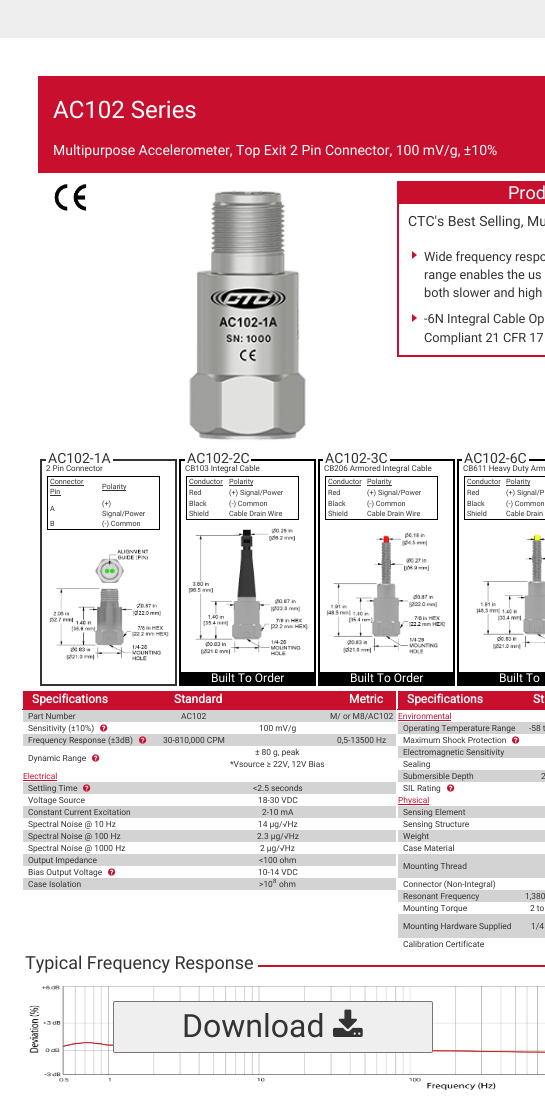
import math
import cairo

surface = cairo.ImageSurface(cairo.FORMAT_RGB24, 545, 1108)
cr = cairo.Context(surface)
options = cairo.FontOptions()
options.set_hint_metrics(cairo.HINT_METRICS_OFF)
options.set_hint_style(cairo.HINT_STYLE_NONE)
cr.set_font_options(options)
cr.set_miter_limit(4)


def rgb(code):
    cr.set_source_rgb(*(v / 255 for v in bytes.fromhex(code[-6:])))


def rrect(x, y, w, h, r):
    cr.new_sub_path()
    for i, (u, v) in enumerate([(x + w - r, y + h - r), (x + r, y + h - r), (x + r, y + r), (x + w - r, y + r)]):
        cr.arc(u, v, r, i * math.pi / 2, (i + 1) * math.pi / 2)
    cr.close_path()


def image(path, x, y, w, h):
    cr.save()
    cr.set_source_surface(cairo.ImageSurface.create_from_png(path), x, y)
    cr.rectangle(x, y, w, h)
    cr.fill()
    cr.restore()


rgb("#eeeeee")
cr.paint()
rgb("#ffffff")
cr.rectangle(0, 38, 545, 1070)
cr.fill()
rgb("#c8102e")
cr.rectangle(38, 76, 507, 97)
cr.fill()
image("img/1.png", 54, 184, 33, 27)
image("img/2.png", 189, 190, 117, 251)
cr.rectangle(398, 182, 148, 174)
cr.stroke()
cr.rectangle(399, 183, 146, 21)
cr.fill()
cr.new_path()
cr.move_to(412, 259)
cr.line_to(412, 251)
cr.line_to(417, 255)
cr.close_path()
cr.fill()
cr.new_path()
cr.move_to(412, 322)
cr.line_to(412, 314)
cr.line_to(417, 318)
cr.close_path()
cr.fill()
cr.rectangle(41, 460, 135, 225)
rgb("#333333")
cr.stroke()
rgb("#ffffff")
cr.rectangle(46, 459, 67, 2)
cr.fill()
cr.rectangle(47.5, 476.5, 112, 53)
rgb("#000000")
cr.set_line_width(1)
cr.stroke()
for x, y, w, h, color in [
    (50, 485, 34, 1, "#333333"),
    (50, 495, 11, 1, "#333333"),
    (102, 490, 24, 1, "#333333"),
]:
    rgb(color)
    cr.rectangle(x, y, w, h)
    cr.fill()
image("img/3.png", 49, 549, 120, 112)
cr.rectangle(180, 460, 135, 225)
rgb("#000000")
cr.set_line_width(2)
cr.stroke()
rgb("#ffffff")
cr.rectangle(185, 459, 66, 2)
cr.fill()
cr.rectangle(186.5, 476.5, 112, 43)
rgb("#000000")
cr.set_line_width(1)
cr.stroke()
rgb("#333333")
cr.rectangle(189, 485, 34, 1)
cr.fill()
cr.rectangle(229, 485, 24, 1)
cr.fill()
image("img/4.png", 188, 528, 120, 128)
rgb("#000000")
cr.rectangle(181, 672, 133, 12)
cr.fill()
cr.rectangle(319, 460, 135, 225)
cr.set_line_width(2)
cr.stroke()
rgb("#ffffff")
cr.rectangle(323, 459, 67, 2)
cr.fill()
cr.rectangle(325.5, 476.5, 112, 43)
rgb("#000000")
cr.set_line_width(1)
cr.stroke()
rgb("#333333")
cr.rectangle(328, 485, 33, 1)
cr.fill()
cr.rectangle(367, 485, 25, 1)
cr.fill()
image("img/5.png", 326, 532, 120, 122)
rgb("#000000")
cr.rectangle(320, 672, 133, 12)
cr.fill()
cr.rectangle(458, 460, 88, 225)
cr.set_line_width(2)
cr.stroke()
rgb("#ffffff")
cr.rectangle(462, 459, 67, 2)
cr.fill()
cr.rectangle(464.5, 476.5, 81, 43)
rgb("#000000")
cr.set_line_width(1)
cr.stroke()
rgb("#333333")
cr.rectangle(467, 485, 33, 1)
cr.fill()
cr.rectangle(506, 485, 24, 1)
cr.fill()
image("img/6.png", 476, 534, 69, 116)
for x, y, w, h, color in [
    (459, 672, 86, 12, "#000000"),
    (23, 691, 373, 18, "#c8102e"),
    (22, 709, 374, 1, "#c8102e"),
    (23, 710, 373, 12, "#d3d3d3"),
]:
    rgb(color)
    cr.rectangle(x, y, w, h)
    cr.fill()
image("img/7.png", 100, 724, 8, 8)
cr.rectangle(23, 734, 373, 12)
cr.fill()
image("img/8.png", 139, 736, 8, 8)
image("img/7.png", 92, 754, 8, 8)
rgb("#c8102e")
cr.rectangle(23, 780, 34, 1)
cr.fill()
rgb("#d3d3d3")
cr.rectangle(23, 782, 373, 12)
cr.fill()
image("img/8.png", 83, 784, 8, 8)
for x, y, w, h, color in [
    (23, 806, 373, 12, "#d3d3d3"),
    (23, 830, 373, 12, "#d3d3d3"),
    (23, 854, 373, 12, "#d3d3d3"),
]:
    rgb(color)
    cr.rectangle(x, y, w, h)
    cr.fill()
image("img/7.png", 108, 868, 8, 8)
for x, y, w, h, color in [
    (23, 878, 373, 12, "#d3d3d3"),
    (398, 691, 147, 18, "#c8102e"),
    (397, 709, 148, 1, "#c8102e"),
    (398, 720, 53, 1, "#c8102e"),
    (398, 722, 147, 12, "#d3d3d3"),
]:
    rgb(color)
    cr.rectangle(x, y, w, h)
    cr.fill()
image("img/7.png", 512, 736, 8, 8)
cr.rectangle(398, 746, 147, 12)
cr.fill()
cr.rectangle(398, 770, 147, 12)
cr.fill()
image("img/7.png", 447, 784, 8, 8)
for x, y, w, h, color in [
    (398, 804, 31, 1, "#c8102e"),
    (398, 806, 147, 12, "#d3d3d3"),
    (398, 830, 147, 12, "#d3d3d3"),
    (398, 854, 147, 24, "#d3d3d3"),
    (398, 890, 147, 12, "#d3d3d3"),
    (398, 914, 147, 24, "#d3d3d3"),
    (258, 965, 287, 2, "#c8102e"),
]:
    rgb(color)
    cr.rectangle(x, y, w, h)
    cr.fill()
image("img/9.png", 29, 985, 516, 105)
rgb("#efefef")
rrect(113.5, 1001.5, 319, 51, 1.5)
cr.fill_preserve()
rgb("#767676")
cr.stroke()
image("img/10.png", 333, 1009, 30, 28)
cr.select_font_face("Roboto")
cr.set_font_size(24)
rgb("#ffffff")
cr.move_to(53, 118)
cr.show_text("AC102 Series")
cr.set_font_size(14)
cr.move_to(53, 155)
cr.show_text("Multipurpose Accelerometer, Top Exit 2 Pin Connector, 100 mV/g, ±10%")
cr.set_font_size(18)
cr.move_to(508, 199)
cr.show_text("Prod")
cr.set_font_size(14)
rgb("#333333")
cr.move_to(408, 226)
cr.show_text("CTC's Best Selling, Mu")
cr.set_font_size(12.75)
for x, y, s in [
    (424, 261, "Wide frequency respo"),
    (424, 279, "range enables the us"),
    (424, 297, "both slower and high"),
    (424, 323, "-6N Integral Cable Op"),
    (424, 342, "Compliant 21 CFR 17"),
]:
    cr.move_to(x, y)
    cr.show_text(s)
cr.set_font_size(14)
cr.move_to(48, 463)
cr.show_text("AC102-1A")
cr.set_font_size(8)
cr.move_to(46, 471)
cr.show_text("2 Pin Connector")
cr.set_font_size(7.25)
for x, y, s in [
    (50, 484, "Connector"),
    (50, 494, "Pin"),
    (102, 489, "Polarity"),
    (50, 511, "A"),
    (102, 506, "(+)"),
    (102, 516, "Signal/Power"),
    (50, 526, "B"),
    (102, 526, "(-) Common"),
]:
    cr.move_to(x, y)
    cr.show_text(s)
cr.set_font_size(14)
cr.move_to(187, 463)
cr.show_text("AC102-2C")
cr.set_font_size(8)
cr.move_to(185, 471)
cr.show_text("CB103 Integral Cable")
cr.set_font_size(7.25)
for x, y, s in [
    (189, 484, "Conductor"),
    (229, 484, "Polarity"),
    (189, 495, "Red"),
    (229, 495, "(+) Signal/Power"),
    (189, 506, "Black"),
    (229, 506, "(-) Common"),
    (189, 516, "Shield"),
    (229, 516, "Cable Drain Wire"),
]:
    cr.move_to(x, y)
    cr.show_text(s)
cr.set_font_size(12)
rgb("#ffffff")
cr.move_to(211, 682)
cr.show_text("Built To Order")
cr.set_font_size(14)
rgb("#333333")
cr.move_to(325, 463)
cr.show_text("AC102-3C")
cr.set_font_size(8)
cr.move_to(324, 471)
cr.show_text("CB206 Armored Integral Cable")
cr.set_font_size(7.25)
for x, y, s in [
    (328, 484, "Conductor"),
    (367, 484, "Polarity"),
    (328, 495, "Red"),
    (367, 495, "(+) Signal/Power"),
    (328, 506, "Black"),
    (367, 506, "(-) Common"),
    (328, 516, "Shield"),
    (367, 516, "Cable Drain Wire"),
]:
    cr.move_to(x, y)
    cr.show_text(s)
cr.set_font_size(12)
rgb("#ffffff")
cr.move_to(350, 682)
cr.show_text("Built To Order")
cr.set_font_size(14)
rgb("#333333")
cr.move_to(464, 463)
cr.show_text("AC102-6C")
cr.set_font_size(8)
cr.move_to(463, 471)
cr.show_text("CB611 Heavy Duty Arm")
cr.set_font_size(7.25)
for x, y, s in [
    (467, 484, "Conductor"),
    (506, 484, "Polarity"),
    (467, 495, "Red"),
    (506, 495, "(+) Signal/P"),
    (467, 506, "Black"),
    (506, 506, "(-) Common"),
    (467, 516, "Shield"),
    (506, 516, "Cable Drain"),
]:
    cr.move_to(x, y)
    cr.show_text(s)
cr.set_font_size(12)
rgb("#ffffff")
cr.move_to(499, 682)
cr.show_text("Built To")
cr.select_font_face("Roboto", cairo.FONT_SLANT_NORMAL, cairo.FONT_WEIGHT_BOLD)
for x, y, s in [
    (32, 703, "Specifications"),
    (174, 703, "Standard"),
    (349, 703, "Metric"),
]:
    cr.move_to(x, y)
    cr.show_text(s)
cr.select_font_face("Roboto")
cr.set_font_size(8.4)
rgb("#333333")
for x, y, s in [
    (28, 719, "Part Number"),
    (181, 719, "AC102"),
    (330, 719, "M/ or M8/AC102"),
    (28, 731, "Sensitivity (±10%)"),
    (259, 731, "100 mV/g"),
    (28, 743, "Frequency Response (±3dB)"),
    (163, 743, "30-810,000 CPM"),
    (337, 743, "0,5-13500 Hz"),
    (28, 761, "Dynamic Range"),
    (255, 755, "± 80 g, peak"),
    (230, 767, "*Vsource ≥ 22V, 12V Bias"),
]:
    cr.move_to(x, y)
    cr.show_text(s)
rgb("#c8102e")
cr.move_to(23, 779)
cr.show_text("Electrical")
rgb("#333333")
for x, y, s in [
    (28, 791, "Settling Time"),
    (253, 791, "<2.5 seconds"),
    (28, 803, "Voltage Source"),
    (258, 803, "18-30 VDC"),
    (28, 815, "Constant Current Excitation"),
    (262, 815, "2-10 mA"),
    (28, 827, "Spectral Noise @ 10 Hz"),
    (258, 827, "14 µg/√Hz"),
    (28, 839, "Spectral Noise @ 100 Hz"),
    (257, 839, "2.3 µg/√Hz"),
    (28, 851, "Spectral Noise @ 1000 Hz"),
    (260, 851, "2 µg/√Hz"),
    (28, 863, "Output Impedance"),
    (259, 863, "<100 ohm"),
    (28, 875, "Bias Output Voltage"),
    (258, 875, "10-14 VDC"),
    (28, 887, "Case Isolation"),
    (259, 887, ">10"),
]:
    cr.move_to(x, y)
    cr.show_text(s)
cr.set_font_size(6)
cr.move_to(273, 883)
cr.show_text("8")
cr.set_font_size(8.4)
cr.move_to(279, 887)
cr.show_text("ohm")
cr.select_font_face("Roboto", cairo.FONT_SLANT_NORMAL, cairo.FONT_WEIGHT_BOLD)
cr.set_font_size(12)
rgb("#ffffff")
cr.move_to(407, 703)
cr.show_text("Specifications")
cr.move_to(533, 703)
cr.show_text("St")
cr.select_font_face("Roboto")
cr.set_font_size(8.4)
rgb("#c8102e")
cr.move_to(398, 719)
cr.show_text("Environmental")
rgb("#333333")
for x, y, s in [
    (403, 731, "Operating Temperature Range"),
    (529, 731, "-58 t"),
    (403, 743, "Maximum Shock Protection"),
    (403, 755, "Electromagnetic Sensitivity"),
    (403, 767, "Sealing"),
    (403, 779, "Submersible Depth"),
    (541, 779, "2"),
    (403, 791, "SIL Rating"),
]:
    cr.move_to(x, y)
    cr.show_text(s)
rgb("#c8102e")
cr.move_to(398, 803)
cr.show_text("Physical")
rgb("#333333")
for x, y, s in [
    (403, 815, "Sensing Element"),
    (403, 827, "Sensing Structure"),
    (403, 839, "Weight"),
    (403, 851, "Case Material"),
    (403, 869, "Mounting Thread"),
    (403, 887, "Connector (Non-Integral)"),
    (403, 899, "Resonant Frequency"),
    (525, 899, "1,380"),
    (403, 911, "Mounting Torque"),
    (530, 911, "2 to"),
    (403, 929, "Mounting Hardware Supplied"),
    (531, 929, "1/4"),
    (403, 947, "Calibration Certificate"),
]:
    cr.move_to(x, y)
    cr.show_text(s)
cr.set_font_size(18)
cr.move_to(25, 969)
cr.show_text("Typical Frequency Response")
cr.set_font_size(32)
cr.move_to(182, 1037)
cr.show_text("Download")
surface.write_to_png("page.png")
